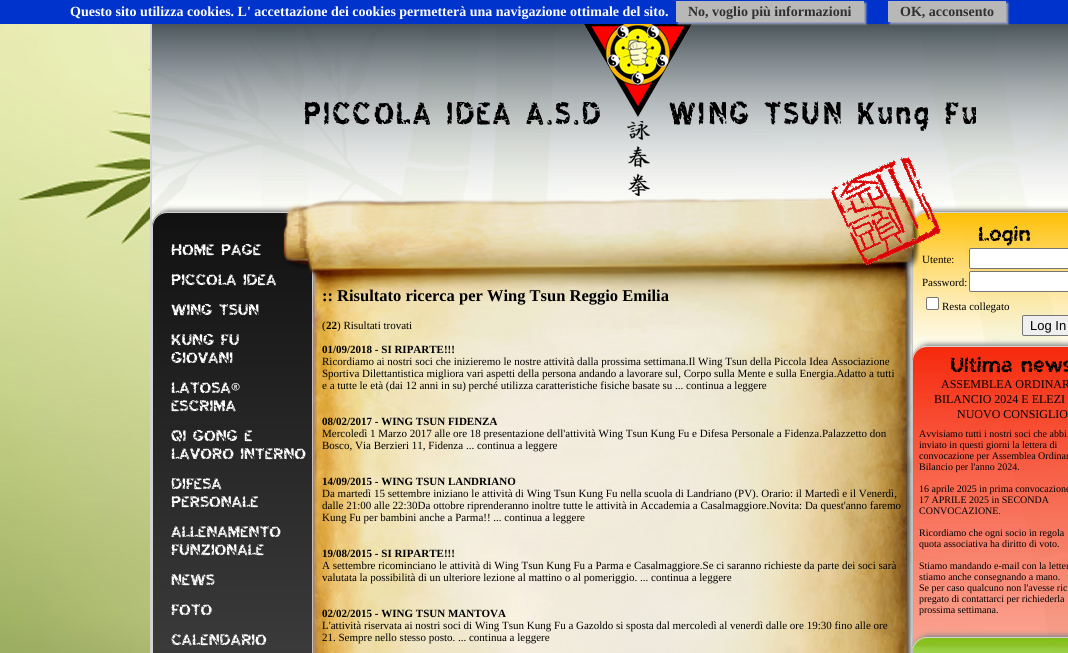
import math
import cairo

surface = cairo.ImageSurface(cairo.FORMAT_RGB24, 1068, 653)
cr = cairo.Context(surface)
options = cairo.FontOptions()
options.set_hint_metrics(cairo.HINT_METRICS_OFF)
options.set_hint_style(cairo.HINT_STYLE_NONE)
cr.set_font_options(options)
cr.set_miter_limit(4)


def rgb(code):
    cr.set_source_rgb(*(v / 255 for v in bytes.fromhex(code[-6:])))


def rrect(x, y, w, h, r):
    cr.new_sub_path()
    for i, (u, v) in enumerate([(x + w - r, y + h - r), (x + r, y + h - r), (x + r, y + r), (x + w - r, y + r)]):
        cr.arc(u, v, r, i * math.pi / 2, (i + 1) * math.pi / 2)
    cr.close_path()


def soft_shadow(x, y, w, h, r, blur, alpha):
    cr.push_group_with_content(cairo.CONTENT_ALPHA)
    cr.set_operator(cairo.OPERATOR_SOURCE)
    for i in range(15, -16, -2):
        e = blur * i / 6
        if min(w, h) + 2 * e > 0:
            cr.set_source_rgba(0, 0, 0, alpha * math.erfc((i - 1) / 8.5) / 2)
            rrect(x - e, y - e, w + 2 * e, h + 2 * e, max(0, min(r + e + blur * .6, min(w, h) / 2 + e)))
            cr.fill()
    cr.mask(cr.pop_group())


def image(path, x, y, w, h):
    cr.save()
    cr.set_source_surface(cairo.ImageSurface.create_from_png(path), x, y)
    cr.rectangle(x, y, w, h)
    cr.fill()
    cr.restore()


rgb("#ffffff")
cr.paint()
image("img/1.png", 0, 24, 1068, 629)
cr.set_source_rgba(1, 1, 1, 0.9)
cr.rectangle(152, 24, 916, 629)
cr.fill()
cr.rectangle(151, 3, 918, 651)
rgb("#d3d3d3")
cr.stroke()
rgb("#0033cc")
cr.rectangle(0, 0, 1068, 24)
cr.fill()
gradient = cairo.LinearGradient(635, 4, 635, 202)
gradient.add_color_stop_rgba(0, 0.157, 0.204, 0.231, 1)
gradient.add_color_stop_rgba(0.64, 0.51, 0.549, 0.584, 0.38)
gradient.add_color_stop_rgba(1, 0.71, 0.741, 0.784, 0.03)
cr.set_source(gradient)
cr.rectangle(152, 24, 916, 177)
cr.fill()
image("img/2.png", 304, 24, 672, 172)
rgb("#aaaaaa")
soft_shadow(678, 3, 188, 21, 0, 1, 1)
rgb("#b8b8b8")
cr.rectangle(676, 1, 188, 21)
cr.fill()
rgb("#aaaaaa")
soft_shadow(890, 3, 118, 21, 0, 1, 1)
rgb("#b8b8b8")
cr.rectangle(888, 1, 118, 21)
cr.fill()
cr.save()
cr.rectangle(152, 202, 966, 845)
cr.clip()
rgb("#888888")
soft_shadow(154, 210, 161, 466, 15, 2.5, 1)
cr.restore()
cr.save()
cr.new_path()
cr.move_to(167, 212)
cr.line_to(298, 212)
cr.curve_to(306.5, 212, 313, 218.5, 313, 227)
cr.line_to(313, 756)
cr.line_to(152, 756)
cr.line_to(152, 227)
cr.curve_to(152, 218.5, 158.5, 212, 167, 212)
cr.close_path()
cr.clip()
gradient = cairo.LinearGradient(232, 213, 233, 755)
gradient.add_color_stop_rgba(0, 0.067, 0.067, 0.067, 1)
gradient.add_color_stop_rgba(1, 0.267, 0.267, 0.267, 1)
cr.set_source(gradient)
cr.rectangle(152, 213, 160, 440)
cr.fill()
cr.restore()
cr.new_path()
cr.move_to(167, 212.5)
cr.line_to(298, 212.5)
cr.curve_to(306, 212.5, 312.5, 219, 312.5, 227)
cr.line_to(312.5, 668.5)
cr.line_to(152.5, 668.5)
cr.line_to(152.5, 227)
cr.curve_to(152.5, 219, 159, 212.5, 167, 212.5)
cr.close_path()
rgb("#d3d3d3")
cr.set_line_width(1)
cr.stroke()
cr.save()
cr.set_fill_rule(cairo.FILL_RULE_EVEN_ODD)
cr.new_path()
cr.move_to(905, 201)
cr.line_to(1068, 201)
cr.line_to(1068, 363)
cr.line_to(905, 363)
cr.close_path()
cr.move_to(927, 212)
cr.line_to(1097, 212)
cr.curve_to(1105.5, 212, 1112, 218.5, 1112, 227)
cr.line_to(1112, 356)
cr.line_to(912, 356)
cr.line_to(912, 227)
cr.curve_to(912, 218.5, 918.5, 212, 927, 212)
cr.close_path()
cr.clip()
rgb("#888888")
soft_shadow(914, 210, 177, 144, 15, 2.5, 1)
cr.restore()
cr.save()
cr.new_path()
cr.move_to(927, 212)
cr.line_to(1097, 212)
cr.curve_to(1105.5, 212, 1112, 218.5, 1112, 227)
cr.line_to(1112, 356)
cr.line_to(912, 356)
cr.line_to(912, 227)
cr.curve_to(912, 218.5, 918.5, 212, 927, 212)
cr.close_path()
cr.clip()
gradient = cairo.LinearGradient(1012, 213, 1012, 355)
gradient.add_color_stop_rgba(0, 0.996, 0.749, 0.016, 1)
gradient.add_color_stop_rgba(0.99, 1, 0.839, 0.365, 0.02)
gradient.add_color_stop_rgba(1, 1, 0.839, 0.369, 0.02)
cr.set_source(gradient)
cr.rectangle(912, 213, 156, 140)
cr.fill()
cr.restore()
cr.new_path()
cr.move_to(927, 212.5)
cr.line_to(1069, 212.5)
cr.curve_to(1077, 212.5, 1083.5, 219, 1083.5, 227)
cr.line_to(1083.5, 355.5)
cr.line_to(912.5, 355.5)
cr.line_to(912.5, 227)
cr.curve_to(912.5, 219, 919, 212.5, 927, 212.5)
cr.close_path()
cr.stroke()
rgb("#ffffff")
rrect(969.5, 248.5, 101, 20, 1.5)
cr.fill_preserve()
rgb("#767676")
cr.stroke()
rgb("#ffffff")
rrect(969.5, 271.5, 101, 20, 1.5)
cr.fill_preserve()
rgb("#767676")
cr.stroke()
rgb("#ffffff")
rrect(926.5, 297.5, 12, 12, 1.5)
cr.fill_preserve()
rgb("#767676")
cr.stroke()
cr.save()
cr.set_fill_rule(cairo.FILL_RULE_EVEN_ODD)
cr.new_path()
cr.move_to(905, 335)
cr.line_to(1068, 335)
cr.line_to(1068, 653)
cr.line_to(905, 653)
cr.close_path()
cr.move_to(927, 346)
cr.line_to(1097, 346)
cr.curve_to(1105.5, 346, 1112, 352.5, 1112, 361)
cr.line_to(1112, 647)
cr.line_to(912, 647)
cr.line_to(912, 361)
cr.curve_to(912, 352.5, 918.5, 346, 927, 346)
cr.close_path()
cr.clip()
rgb("#888888")
soft_shadow(914, 344, 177, 301, 15, 2.5, 1)
cr.restore()
rgb("#efefef")
rrect(1022.5, 315.5, 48, 20, 1.5)
cr.fill_preserve()
rgb("#767676")
cr.stroke()
cr.save()
cr.new_path()
cr.move_to(927, 346)
cr.line_to(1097, 346)
cr.curve_to(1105.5, 346, 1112, 352.5, 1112, 361)
cr.line_to(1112, 647)
cr.line_to(912, 647)
cr.line_to(912, 361)
cr.curve_to(912, 352.5, 918.5, 346, 927, 346)
cr.close_path()
cr.clip()
gradient = cairo.LinearGradient(1012, 347, 1012, 646)
gradient.add_color_stop_rgba(0, 0.965, 0.161, 0.047, 1)
gradient.add_color_stop_rgba(1, 0.973, 0.314, 0.196, 0.51)
cr.set_source(gradient)
cr.rectangle(912, 347, 156, 299)
cr.fill()
cr.restore()
cr.new_path()
cr.move_to(927, 346.5)
cr.line_to(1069, 346.5)
cr.curve_to(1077, 346.5, 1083.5, 353, 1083.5, 361)
cr.line_to(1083.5, 646.5)
cr.line_to(912.5, 646.5)
cr.line_to(912.5, 361)
cr.curve_to(912.5, 353, 919, 346.5, 927, 346.5)
cr.close_path()
rgb("#d3d3d3")
cr.stroke()
cr.save()
cr.set_fill_rule(cairo.FILL_RULE_EVEN_ODD)
cr.new_path()
cr.move_to(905, 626)
cr.line_to(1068, 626)
cr.line_to(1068, 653)
cr.line_to(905, 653)
cr.close_path()
cr.move_to(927, 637)
cr.line_to(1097, 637)
cr.curve_to(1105.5, 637, 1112, 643.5, 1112, 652)
cr.line_to(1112, 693)
cr.curve_to(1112, 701.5, 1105.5, 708, 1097, 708)
cr.line_to(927, 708)
cr.curve_to(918.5, 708, 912, 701.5, 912, 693)
cr.line_to(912, 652)
cr.curve_to(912, 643.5, 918.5, 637, 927, 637)
cr.close_path()
cr.clip()
rgb("#888888")
soft_shadow(914, 635, 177, 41, 15, 2.5, 1)
cr.restore()
cr.save()
rrect(912, 637, 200, 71, 15)
cr.clip()
gradient = cairo.LinearGradient(1012, 638, 1012, 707)
gradient.add_color_stop_rgba(0, 0.486, 0.737, 0.039, 1)
gradient.add_color_stop_rgba(0.01, 0.502, 0.761, 0.09, 0.99)
gradient.add_color_stop_rgba(1, 0.616, 0.835, 0.227, 0.03)
cr.set_source(gradient)
cr.rectangle(912, 638, 156, 15)
cr.fill()
cr.restore()
rrect(912.5, 637.5, 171, 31, 14.5)
cr.stroke()
cr.select_font_face("Liberation Serif", cairo.FONT_SLANT_NORMAL, cairo.FONT_WEIGHT_BOLD)
cr.set_font_size(14)
rgb("#ffffff")
cr.move_to(70, 16)
cr.show_text("Questo sito utilizza cookies. L' accettazione dei cookies permetterà una navigazione ottimale del sito.")
rgb("#303030")
cr.move_to(688, 16)
cr.show_text("No, voglio più informazioni")
cr.move_to(900, 16)
cr.show_text("OK, acconsento")
cr.select_font_face("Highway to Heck")
cr.set_font_size(15)
rgb("#ffffff")
for x, y, s in [
    (171, 255, "HOME PAGE"),
    (171, 285, "PICCOLA IDEA"),
    (171, 315, "WING TSUN"),
    (171, 345, "KUNG FU"),
    (171, 363, "GIOVANI"),
    (171, 393, "LATOSA®"),
    (171, 411, "ESCRIMA"),
    (171, 441, "QI GONG E"),
    (171, 489, "DIFESA"),
    (171, 507, "PERSONALE"),
    (171, 537, "ALLENAMENTO"),
    (171, 555, "FUNZIONALE"),
    (171, 585, "NEWS"),
    (171, 615, "FOTO"),
    (171, 645, "CALENDARIO"),
]:
    cr.move_to(x, y)
    cr.show_text(s)
cr.set_font_size(20)
rgb("#000000")
cr.move_to(978, 241)
cr.show_text("Login")
cr.select_font_face("Liberation Serif")
cr.set_font_size(11)
for x, y, s in [
    (922, 263, "Utente:"),
    (922, 286, "Password:"),
    (942, 310, "Resta collegato"),
]:
    cr.move_to(x, y)
    cr.show_text(s)
cr.select_font_face("Liberation Sans")
cr.set_font_size(13)
cr.move_to(1030, 330)
cr.show_text("Log In")
cr.select_font_face("Highway to Heck")
cr.set_font_size(20)
cr.move_to(950, 372)
cr.show_text("Ultima news")
cr.select_font_face("Liberation Serif")
cr.set_font_size(12)
for x, y, s in [
    (941, 388, "ASSEMBLEA ORDINAR"),
    (934, 403, "BILANCIO 2024 E ELEZI"),
    (957, 418, "NUOVO CONSIGLIO"),
]:
    cr.move_to(x, y)
    cr.show_text(s)
cr.set_font_size(10)
for x, y, s in [
    (919, 437, "Avvisiamo tutti i nostri soci che abbi"),
    (919, 448, "inviato in questi giorni la lettera di"),
    (919, 459, "convocazione per Assemblea Ordinar"),
    (919, 470, "Bilancio per l'anno 2024."),
    (919, 492, "16 aprile 2025 in prima convocazione"),
    (919, 503, "17 APRILE 2025 in SECONDA"),
    (919, 514, "CONVOCAZIONE."),
    (919, 536, "Ricordiamo che ogni socio in regola"),
    (919, 547, "quota associativa ha diritto di voto."),
    (919, 569, "Stiamo mandando e-mail con la letter"),
    (919, 580, "stiamo anche consegnando a mano."),
    (919, 591, "Se per caso qualcuno non l'avesse ric"),
    (919, 602, "pregato di contattarci per richiederla"),
    (919, 613, "prossima settimana."),
]:
    cr.move_to(x, y)
    cr.show_text(s)
image("img/4.png", 283, 196, 637, 457)
image("img/3.png", 831, 157, 110, 108)
cr.select_font_face("Highway to Heck")
cr.set_font_size(15)
rgb("#ffffff")
cr.move_to(171, 459)
cr.show_text("LAVORO INTERNO")
cr.select_font_face("Liberation Serif")
cr.set_font_size(11)
rgb("#000000")
cr.move_to(322, 641)
cr.show_text("21. Sempre nello stesso posto. ... continua a leggere")
cr.move_to(322, 629)
cr.show_text("L'attività riservata ai nostri soci di Wing Tsun Kung Fu a Gazoldo si sposta dal mercoledì al venerdì dalle ore 19:30 fino alle ore")
cr.select_font_face("Liberation Serif", cairo.FONT_SLANT_NORMAL, cairo.FONT_WEIGHT_BOLD)
cr.move_to(322, 617)
cr.show_text("02/02/2015 - WING TSUN MANTOVA")
cr.select_font_face("Liberation Serif")
cr.move_to(322, 581)
cr.show_text("valutata la possibilità di un ulteriore lezione al mattino o al pomeriggio. ... continua a leggere")
cr.move_to(322, 569)
cr.show_text("A settembre ricominciano le attività di Wing Tsun Kung Fu a Parma e Casalmaggiore.Se ci saranno richieste da parte dei soci sarà")
cr.select_font_face("Liberation Serif", cairo.FONT_SLANT_NORMAL, cairo.FONT_WEIGHT_BOLD)
cr.move_to(322, 557)
cr.show_text("19/08/2015 - SI RIPARTE!!!")
cr.select_font_face("Liberation Serif")
for x, y, s in [
    (322, 521, "Kung Fu per bambini anche a Parma!! ... continua a leggere"),
    (322, 509, "dalle 21:00 alle 22:30Da ottobre riprenderanno inoltre tutte le attività in Accademia a Casalmaggiore.Novita: Da quest'anno faremo"),
    (322, 497, "Da martedì 15 settembre iniziano le attività di Wing Tsun Kung Fu nella scuola di Landriano (PV). Orario: il Martedì e il Venerdì,"),
]:
    cr.move_to(x, y)
    cr.show_text(s)
cr.select_font_face("Liberation Serif", cairo.FONT_SLANT_NORMAL, cairo.FONT_WEIGHT_BOLD)
cr.move_to(322, 485)
cr.show_text("14/09/2015 - WING TSUN LANDRIANO")
cr.select_font_face("Liberation Serif")
cr.move_to(322, 449)
cr.show_text("Bosco, Via Berzieri 11, Fidenza ... continua a leggere")
cr.move_to(322, 437)
cr.show_text("Mercoledì 1 Marzo 2017 alle ore 18 presentazione dell'attività Wing Tsun Kung Fu e Difesa Personale a Fidenza.Palazzetto don")
cr.select_font_face("Liberation Serif", cairo.FONT_SLANT_NORMAL, cairo.FONT_WEIGHT_BOLD)
cr.move_to(322, 425)
cr.show_text("08/02/2017 - WING TSUN FIDENZA")
cr.select_font_face("Liberation Serif")
for x, y, s in [
    (322, 389, "e a tutte le età (dai 12 anni in su) perché utilizza caratteristiche fisiche basate su ... continua a leggere"),
    (322, 377, "Sportiva Dilettantistica migliora vari aspetti della persona andando a lavorare sul, Corpo sulla Mente e sulla Energia.Adatto a tutti"),
    (322, 365, "Ricordiamo ai nostri soci che inizieremo le nostre attività dalla prossima settimana.Il Wing Tsun della Piccola Idea Associazione"),
]:
    cr.move_to(x, y)
    cr.show_text(s)
cr.select_font_face("Liberation Serif", cairo.FONT_SLANT_NORMAL, cairo.FONT_WEIGHT_BOLD)
cr.move_to(322, 353)
cr.show_text("01/09/2018 - SI RIPARTE!!!")
cr.select_font_face("Liberation Serif")
cr.move_to(337, 329)
cr.show_text(") Risultati trovati")
cr.select_font_face("Liberation Serif", cairo.FONT_SLANT_NORMAL, cairo.FONT_WEIGHT_BOLD)
cr.move_to(326, 329)
cr.show_text("22")
cr.select_font_face("Liberation Serif")
cr.move_to(322, 329)
cr.show_text("(")
cr.select_font_face("Liberation Serif", cairo.FONT_SLANT_NORMAL, cairo.FONT_WEIGHT_BOLD)
cr.set_font_size(16.5)
cr.move_to(322, 301)
cr.show_text(":: Risultato ricerca per Wing Tsun Reggio Emilia")
surface.write_to_png("page.png")
